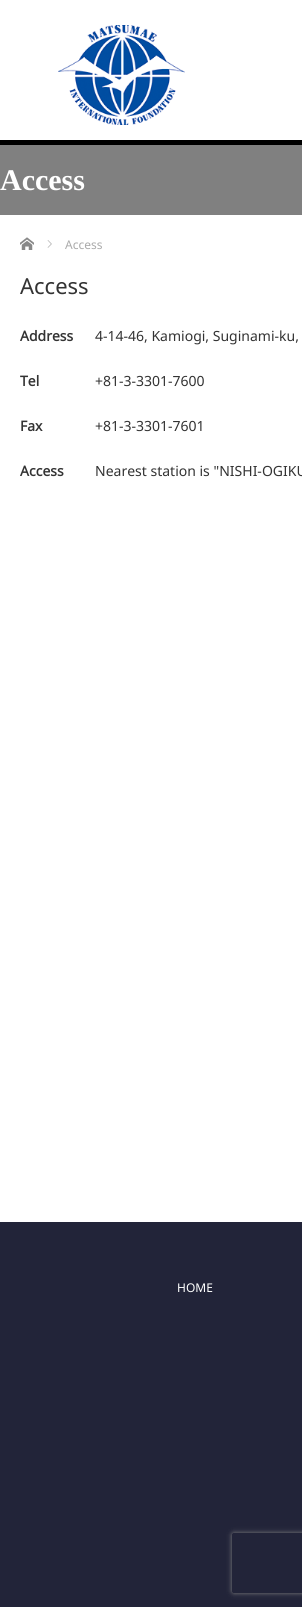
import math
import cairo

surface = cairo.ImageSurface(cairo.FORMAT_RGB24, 302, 1607)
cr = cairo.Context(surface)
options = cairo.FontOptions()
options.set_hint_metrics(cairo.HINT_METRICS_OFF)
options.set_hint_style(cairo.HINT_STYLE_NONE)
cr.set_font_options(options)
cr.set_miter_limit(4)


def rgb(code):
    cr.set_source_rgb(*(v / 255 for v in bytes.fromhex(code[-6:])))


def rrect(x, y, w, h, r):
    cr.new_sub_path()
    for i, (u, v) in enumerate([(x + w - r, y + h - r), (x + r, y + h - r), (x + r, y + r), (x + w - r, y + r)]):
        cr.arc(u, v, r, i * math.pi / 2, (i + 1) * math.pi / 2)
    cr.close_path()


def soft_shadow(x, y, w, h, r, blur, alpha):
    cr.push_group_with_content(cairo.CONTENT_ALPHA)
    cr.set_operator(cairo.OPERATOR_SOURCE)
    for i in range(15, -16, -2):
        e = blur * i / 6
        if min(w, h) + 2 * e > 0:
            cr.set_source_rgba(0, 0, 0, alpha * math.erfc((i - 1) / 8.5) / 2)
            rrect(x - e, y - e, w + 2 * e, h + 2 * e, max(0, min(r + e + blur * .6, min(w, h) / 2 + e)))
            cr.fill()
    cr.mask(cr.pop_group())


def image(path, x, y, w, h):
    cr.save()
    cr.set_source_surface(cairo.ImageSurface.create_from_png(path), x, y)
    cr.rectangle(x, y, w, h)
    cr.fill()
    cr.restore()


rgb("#ffffff")
cr.paint()
rgb("#000000")
cr.rectangle(0, 140, 302, 5)
cr.fill()
image("img/1.png", 58, 25, 127, 100)
rgb("#808080")
cr.rectangle(0, 145, 302, 70)
cr.fill()
image("img/2.png", 20, 237, 14, 13)
image("img/3.png", 47, 240, 5, 8)
rgb("#222439")
cr.rectangle(0, 1222, 302, 385)
cr.fill()
cr.save()
cr.set_fill_rule(cairo.FILL_RULE_EVEN_ODD)
cr.new_path()
cr.move_to(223, 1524)
cr.line_to(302, 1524)
cr.line_to(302, 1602)
cr.line_to(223, 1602)
cr.close_path()
cr.move_to(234, 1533)
cr.line_to(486, 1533)
cr.curve_to(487, 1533, 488, 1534, 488, 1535)
cr.line_to(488, 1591)
cr.curve_to(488, 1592, 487, 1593, 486, 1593)
cr.line_to(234, 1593)
cr.curve_to(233, 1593, 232, 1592, 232, 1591)
cr.line_to(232, 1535)
cr.curve_to(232, 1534, 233, 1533, 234, 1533)
cr.close_path()
cr.clip()
rgb("#808080")
soft_shadow(232, 1533, 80, 60, 2, 2.5, 1)
cr.restore()
cr.select_font_face("Liberation Serif", cairo.FONT_SLANT_NORMAL, cairo.FONT_WEIGHT_BOLD)
cr.set_font_size(30)
rgb("#ffffff")
cr.move_to(0, 190)
cr.show_text("Access")
cr.select_font_face("Noto Sans")
cr.set_font_size(12)
rgb("#aaaaaa")
cr.move_to(65, 249)
cr.show_text("Access")
cr.set_font_size(22)
rgb("#333333")
cr.move_to(20, 294)
cr.show_text("Access")
cr.select_font_face("Noto Sans", cairo.FONT_SLANT_NORMAL, cairo.FONT_WEIGHT_BOLD)
cr.set_font_size(14)
cr.move_to(20, 341)
cr.show_text("Address")
cr.select_font_face("Noto Sans")
cr.move_to(95, 341)
cr.show_text("4-14-46, Kamiogi, Suginami-ku,")
cr.select_font_face("Noto Sans", cairo.FONT_SLANT_NORMAL, cairo.FONT_WEIGHT_BOLD)
cr.move_to(20, 386)
cr.show_text("Tel")
cr.select_font_face("Noto Sans")
cr.move_to(95, 386)
cr.show_text("+81-3-3301-7600")
cr.select_font_face("Noto Sans", cairo.FONT_SLANT_NORMAL, cairo.FONT_WEIGHT_BOLD)
cr.move_to(20, 431)
cr.show_text("Fax")
cr.select_font_face("Noto Sans")
cr.move_to(95, 431)
cr.show_text("+81-3-3301-7601")
cr.select_font_face("Noto Sans", cairo.FONT_SLANT_NORMAL, cairo.FONT_WEIGHT_BOLD)
cr.move_to(20, 476)
cr.show_text("Access")
cr.select_font_face("Noto Sans")
cr.move_to(95, 476)
cr.show_text("Nearest station is \"NISHI-OGIKU")
cr.set_font_size(12)
rgb("#ffffff")
cr.move_to(177, 1292)
cr.show_text("HOME")
surface.write_to_png("page.png")
